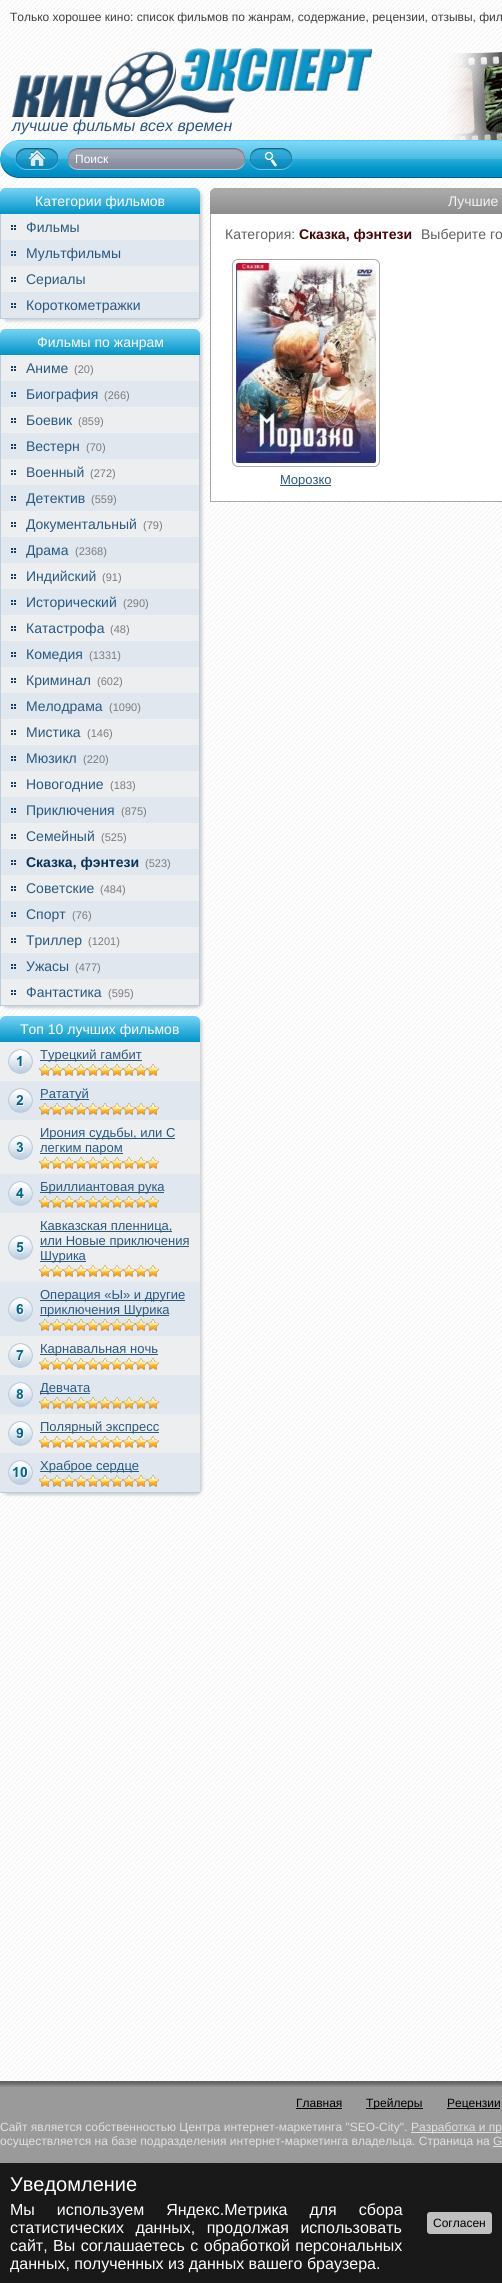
import math
import cairo

surface = cairo.ImageSurface(cairo.FORMAT_RGB24, 502, 2283)
cr = cairo.Context(surface)
options = cairo.FontOptions()
options.set_hint_metrics(cairo.HINT_METRICS_OFF)
options.set_hint_style(cairo.HINT_STYLE_NONE)
cr.set_font_options(options)
cr.set_miter_limit(4)


def rgb(code):
    cr.set_source_rgb(*(v / 255 for v in bytes.fromhex(code[-6:])))


def tracked(x, y, s, letter, word):
    cr.move_to(x, y)
    for ch in s:
        cr.show_text(ch)
        cr.rel_move_to(letter + word * (ch == ' '), 0)


def rrect(x, y, w, h, r):
    cr.new_sub_path()
    for i, (u, v) in enumerate([(x + w - r, y + h - r), (x + r, y + h - r), (x + r, y + r), (x + w - r, y + r)]):
        cr.arc(u, v, r, i * math.pi / 2, (i + 1) * math.pi / 2)
    cr.close_path()


def soft_shadow(x, y, w, h, r, blur, alpha):
    cr.push_group_with_content(cairo.CONTENT_ALPHA)
    cr.set_operator(cairo.OPERATOR_SOURCE)
    for i in range(15, -16, -2):
        e = blur * i / 6
        if min(w, h) + 2 * e > 0:
            cr.set_source_rgba(0, 0, 0, alpha * math.erfc((i - 1) / 8.5) / 2)
            rrect(x - e, y - e, w + 2 * e, h + 2 * e, max(0, min(r + e + blur * .6, min(w, h) / 2 + e)))
            cr.fill()
    cr.mask(cr.pop_group())


def image(path, x, y, w, h):
    cr.save()
    cr.set_source_surface(cairo.ImageSurface.create_from_png(path), x, y)
    cr.rectangle(x, y, w, h)
    cr.fill()
    cr.restore()


rgb("#ffffff")
cr.paint()
image("img/1.png", 0, 0, 502, 2283)
image("img/2.png", 447, 52, 55, 88)
image("img/3.png", 12, 48, 360, 69)
image("img/4.png", 0, 140, 502, 38)
image("img/5.png", 15, 148, 43, 22)
image("img/6.png", 68, 148, 177, 22)
image("img/7.png", 250, 148, 42, 22)
rgb("#cdcdcd")
soft_shadow(2, 190, 200, 131, 6, 1.5, 1)
rgb("#eceeef")
cr.new_path()
cr.move_to(6, 188)
cr.line_to(194, 188)
cr.curve_to(197.5, 188, 200, 190.5, 200, 194)
cr.line_to(200, 319)
cr.line_to(0, 319)
cr.line_to(0, 194)
cr.curve_to(0, 190.5, 2.5, 188, 6, 188)
cr.close_path()
cr.fill()
rgb("#b9cce0")
cr.rectangle(0, 318, 200, 1)
cr.fill()
rgb("#71d0f2")
cr.new_path()
cr.move_to(6, 188)
cr.line_to(194, 188)
cr.curve_to(197.5, 188, 200, 190.5, 200, 194)
cr.line_to(200, 214)
cr.line_to(0, 214)
cr.line_to(0, 194)
cr.curve_to(0, 190.5, 2.5, 188, 6, 188)
cr.close_path()
cr.fill()
image("img/8.png", 0, 189, 200, 25)
rgb("#b9cce0")
cr.rectangle(199, 214, 1, 104)
cr.fill()
cr.rectangle(0, 214, 1, 104)
cr.fill()
image("img/9.png", 11, 225, 5, 5)
rgb("#e0e7ef")
cr.rectangle(1, 240, 198, 26)
cr.fill()
image("img/10.png", 11, 251, 5, 5)
image("img/9.png", 11, 277, 5, 5)
cr.rectangle(1, 292, 198, 26)
cr.fill()
image("img/10.png", 11, 303, 5, 5)
rgb("#cdcdcd")
soft_shadow(2, 331, 200, 677, 6, 1.5, 1)
rgb("#eceeef")
cr.new_path()
cr.move_to(6, 329)
cr.line_to(194, 329)
cr.curve_to(197.5, 329, 200, 331.5, 200, 335)
cr.line_to(200, 1006)
cr.line_to(0, 1006)
cr.line_to(0, 335)
cr.curve_to(0, 331.5, 2.5, 329, 6, 329)
cr.close_path()
cr.fill()
rgb("#b9cce0")
cr.rectangle(0, 1005, 200, 1)
cr.fill()
rgb("#71d0f2")
cr.new_path()
cr.move_to(6, 329)
cr.line_to(194, 329)
cr.curve_to(197.5, 329, 200, 331.5, 200, 335)
cr.line_to(200, 355)
cr.line_to(0, 355)
cr.line_to(0, 335)
cr.curve_to(0, 331.5, 2.5, 329, 6, 329)
cr.close_path()
cr.fill()
image("img/11.png", 0, 330, 200, 25)
rgb("#b9cce0")
cr.rectangle(199, 355, 1, 650)
cr.fill()
cr.rectangle(0, 355, 1, 650)
cr.fill()
image("img/9.png", 11, 366, 5, 5)
rgb("#e0e7ef")
cr.rectangle(1, 381, 198, 26)
cr.fill()
image("img/10.png", 11, 392, 5, 5)
image("img/9.png", 11, 418, 5, 5)
cr.rectangle(1, 433, 198, 26)
cr.fill()
image("img/10.png", 11, 444, 5, 5)
image("img/9.png", 11, 470, 5, 5)
cr.rectangle(1, 485, 198, 26)
cr.fill()
image("img/10.png", 11, 496, 5, 5)
image("img/9.png", 11, 522, 5, 5)
cr.rectangle(1, 537, 198, 26)
cr.fill()
image("img/10.png", 11, 548, 5, 5)
image("img/9.png", 11, 574, 5, 5)
cr.rectangle(1, 589, 198, 26)
cr.fill()
image("img/10.png", 11, 600, 5, 5)
image("img/9.png", 11, 626, 5, 5)
cr.rectangle(1, 641, 198, 26)
cr.fill()
image("img/10.png", 11, 652, 5, 5)
image("img/9.png", 11, 678, 5, 5)
cr.rectangle(1, 693, 198, 26)
cr.fill()
image("img/10.png", 11, 704, 5, 5)
image("img/9.png", 11, 730, 5, 5)
cr.rectangle(1, 745, 198, 26)
cr.fill()
image("img/10.png", 11, 756, 5, 5)
image("img/9.png", 11, 782, 5, 5)
cr.rectangle(1, 797, 198, 26)
cr.fill()
image("img/10.png", 11, 808, 5, 5)
image("img/9.png", 11, 834, 5, 5)
cr.rectangle(1, 849, 198, 26)
cr.fill()
image("img/10.png", 11, 860, 5, 5)
image("img/9.png", 11, 886, 5, 5)
cr.rectangle(1, 901, 198, 26)
cr.fill()
image("img/10.png", 11, 912, 5, 5)
image("img/9.png", 11, 938, 5, 5)
cr.rectangle(1, 953, 198, 26)
cr.fill()
image("img/10.png", 11, 964, 5, 5)
image("img/9.png", 11, 990, 5, 5)
rgb("#cdcdcd")
soft_shadow(2, 1018, 200, 477, 6, 1.5, 1)
rgb("#eceeef")
cr.new_path()
cr.move_to(6, 1016)
cr.line_to(194, 1016)
cr.curve_to(197.5, 1016, 200, 1018.5, 200, 1022)
cr.line_to(200, 1493)
cr.line_to(0, 1493)
cr.line_to(0, 1022)
cr.curve_to(0, 1018.5, 2.5, 1016, 6, 1016)
cr.close_path()
cr.fill()
rgb("#b9cce0")
cr.rectangle(0, 1492, 200, 1)
cr.fill()
rgb("#71d0f2")
cr.new_path()
cr.move_to(6, 1016)
cr.line_to(194, 1016)
cr.curve_to(197.5, 1016, 200, 1018.5, 200, 1022)
cr.line_to(200, 1042)
cr.line_to(0, 1042)
cr.line_to(0, 1022)
cr.curve_to(0, 1018.5, 2.5, 1016, 6, 1016)
cr.close_path()
cr.fill()
image("img/12.png", 0, 1017, 200, 25)
image("img/13.png", 8, 1049, 25, 25)
rgb("#2a5980")
cr.rectangle(40, 1060, 102, 1)
cr.fill()
image("img/14.png", 39, 1064, 120, 12)
image("img/15.png", 39, 1064, 120, 12)
rgb("#e0e7ef")
cr.rectangle(0, 1081, 200, 39)
cr.fill()
image("img/16.png", 8, 1088, 25, 25)
rgb("#2a5980")
cr.rectangle(40, 1099, 49, 1)
cr.fill()
image("img/17.png", 39, 1103, 120, 12)
image("img/18.png", 39, 1103, 120, 12)
image("img/19.png", 8, 1135, 25, 25)
cr.rectangle(40, 1138, 135, 1)
cr.fill()
cr.rectangle(40, 1153, 83, 1)
cr.fill()
image("img/14.png", 39, 1157, 120, 12)
image("img/15.png", 39, 1157, 120, 12)
rgb("#e0e7ef")
cr.rectangle(0, 1174, 200, 39)
cr.fill()
image("img/20.png", 8, 1181, 25, 25)
rgb("#2a5980")
cr.rectangle(40, 1192, 124, 1)
cr.fill()
image("img/17.png", 39, 1196, 120, 12)
image("img/18.png", 39, 1196, 120, 12)
image("img/21.png", 8, 1235, 25, 25)
for x, y, w, h, color in [
    (40, 1231, 132, 1, "#2a5980"),
    (40, 1246, 149, 1, "#2a5980"),
    (40, 1261, 46, 1, "#2a5980"),
]:
    rgb(color)
    cr.rectangle(x, y, w, h)
    cr.fill()
image("img/14.png", 39, 1265, 120, 12)
image("img/15.png", 39, 1265, 120, 12)
rgb("#e0e7ef")
cr.rectangle(0, 1282, 200, 54)
cr.fill()
image("img/22.png", 8, 1297, 25, 25)
rgb("#2a5980")
cr.rectangle(40, 1300, 145, 1)
cr.fill()
cr.rectangle(40, 1315, 129, 1)
cr.fill()
image("img/17.png", 39, 1319, 120, 12)
image("img/18.png", 39, 1319, 120, 12)
image("img/23.png", 8, 1343, 25, 25)
cr.rectangle(40, 1354, 118, 1)
cr.fill()
image("img/14.png", 39, 1358, 120, 12)
image("img/15.png", 39, 1358, 120, 12)
rgb("#e0e7ef")
cr.rectangle(0, 1375, 200, 39)
cr.fill()
image("img/24.png", 8, 1382, 25, 25)
rgb("#2a5980")
cr.rectangle(40, 1393, 50, 1)
cr.fill()
image("img/17.png", 39, 1397, 120, 12)
image("img/18.png", 39, 1397, 120, 12)
image("img/25.png", 8, 1421, 25, 25)
cr.rectangle(40, 1432, 119, 1)
cr.fill()
image("img/14.png", 39, 1436, 120, 12)
image("img/15.png", 39, 1436, 120, 12)
rgb("#e0e7ef")
cr.rectangle(0, 1453, 200, 39)
cr.fill()
image("img/26.png", 8, 1460, 25, 25)
rgb("#2a5980")
cr.rectangle(40, 1471, 99, 1)
cr.fill()
image("img/17.png", 39, 1475, 120, 12)
image("img/18.png", 39, 1475, 120, 12)
rgb("#ffffff")
cr.new_path()
cr.move_to(216, 188.5)
cr.line_to(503, 188.5)
cr.curve_to(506, 188.5, 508.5, 191, 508.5, 194)
cr.line_to(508.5, 501.5)
cr.line_to(210.5, 501.5)
cr.line_to(210.5, 194)
cr.curve_to(210.5, 191, 213, 188.5, 216, 188.5)
cr.close_path()
cr.fill_preserve()
rgb("#a9a9a9")
cr.set_line_width(1)
cr.stroke()
cr.new_path()
cr.move_to(216, 188)
cr.line_to(502, 188)
cr.curve_to(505.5, 188, 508, 190.5, 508, 194)
cr.line_to(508, 214)
cr.line_to(210, 214)
cr.line_to(210, 194)
cr.curve_to(210, 190.5, 212.5, 188, 216, 188)
cr.close_path()
cr.fill()
image("img/27.png", 210, 189, 292, 25)
rrect(232.5, 259.5, 147, 207, 5.5)
cr.stroke()
image("img/28.png", 236, 263, 140, 200)
rgb("#2a5980")
cr.rectangle(280, 485, 51, 1)
cr.fill()
rgb("#9a9a9a")
cr.rectangle(0, 2087, 502, 76)
cr.fill()
image("img/29.png", 0, 2081, 502, 6)
rgb("#000000")
cr.rectangle(296, 2108, 46, 1)
cr.rectangle(366, 2108, 57, 1)
cr.rectangle(447, 2108, 53, 1)
cr.fill()
rgb("#e1e1e1")
cr.rectangle(411, 2132, 91, 1)
cr.rectangle(493, 2146, 9, 1)
cr.fill()
cr.set_source_rgba(0, 0, 0, 0.9)
cr.rectangle(0, 2163, 502, 120)
cr.fill()
rgb("#c0c0c0")
rrect(427, 2212, 65, 22, 3)
cr.fill()
cr.select_font_face("Liberation Sans")
cr.set_font_size(12)
rgb("#3e3e3e")
cr.move_to(10, 21)
cr.show_text("Только хорошее кино: список фильмов по жанрам, содержание, рецензии, отзывы, фил")
cr.select_font_face("Liberation Sans", cairo.FONT_SLANT_ITALIC)
cr.set_font_size(16)
rgb("#2a5980")
cr.move_to(12, 131)
cr.show_text("лучшие фильмы всех времен")
cr.select_font_face("Liberation Sans")
cr.set_font_size(12)
rgb("#ffffff")
cr.move_to(75, 163)
cr.show_text("Поиск")
cr.set_font_size(14)
cr.move_to(35, 206)
cr.show_text("Категории фильмов")
rgb("#2a5980")
for x, y, s in [
    (26, 232, "Фильмы"),
    (26, 258, "Мультфильмы"),
    (26, 284, "Сериалы"),
    (26, 310, "Короткометражки"),
]:
    cr.move_to(x, y)
    cr.show_text(s)
rgb("#ffffff")
cr.move_to(37, 347)
cr.show_text("Фильмы по жанрам")
rgb("#2a5980")
cr.move_to(26, 373)
cr.show_text("Аниме")
cr.set_font_size(11)
rgb("#7b7b7b")
cr.move_to(74, 373)
cr.show_text("(20)")
cr.set_font_size(14)
rgb("#2a5980")
cr.move_to(26, 399)
cr.show_text("Биография")
cr.set_font_size(11)
rgb("#7b7b7b")
cr.move_to(104, 399)
cr.show_text("(266)")
cr.set_font_size(14)
rgb("#2a5980")
cr.move_to(26, 425)
cr.show_text("Боевик")
cr.set_font_size(11)
rgb("#7b7b7b")
cr.move_to(78, 425)
cr.show_text("(859)")
cr.set_font_size(14)
rgb("#2a5980")
cr.move_to(26, 451)
cr.show_text("Вестерн")
cr.set_font_size(11)
rgb("#7b7b7b")
cr.move_to(86, 451)
cr.show_text("(70)")
cr.set_font_size(14)
rgb("#2a5980")
cr.move_to(26, 477)
cr.show_text("Военный")
cr.set_font_size(11)
rgb("#7b7b7b")
cr.move_to(90, 477)
cr.show_text("(272)")
cr.set_font_size(14)
rgb("#2a5980")
cr.move_to(26, 503)
cr.show_text("Детектив")
cr.set_font_size(11)
rgb("#7b7b7b")
cr.move_to(91, 503)
cr.show_text("(559)")
cr.set_font_size(14)
rgb("#2a5980")
cr.move_to(26, 529)
cr.show_text("Документальный")
cr.set_font_size(11)
rgb("#7b7b7b")
cr.move_to(143, 529)
cr.show_text("(79)")
cr.set_font_size(14)
rgb("#2a5980")
cr.move_to(26, 555)
cr.show_text("Драма")
cr.set_font_size(11)
rgb("#7b7b7b")
cr.move_to(75, 555)
cr.show_text("(2368)")
cr.set_font_size(14)
rgb("#2a5980")
cr.move_to(26, 581)
cr.show_text("Индийский")
cr.set_font_size(11)
rgb("#7b7b7b")
cr.move_to(102, 581)
cr.show_text("(91)")
cr.set_font_size(14)
rgb("#2a5980")
cr.move_to(26, 607)
cr.show_text("Исторический")
cr.set_font_size(11)
rgb("#7b7b7b")
cr.move_to(123, 607)
cr.show_text("(290)")
cr.set_font_size(14)
rgb("#2a5980")
cr.move_to(26, 633)
cr.show_text("Катастрофа")
cr.set_font_size(11)
rgb("#7b7b7b")
cr.move_to(110, 633)
cr.show_text("(48)")
cr.set_font_size(14)
rgb("#2a5980")
cr.move_to(26, 659)
cr.show_text("Комедия")
cr.set_font_size(11)
rgb("#7b7b7b")
cr.move_to(89, 659)
cr.show_text("(1331)")
cr.set_font_size(14)
rgb("#2a5980")
cr.move_to(26, 685)
cr.show_text("Криминал")
cr.set_font_size(11)
rgb("#7b7b7b")
cr.move_to(97, 685)
cr.show_text("(602)")
cr.set_font_size(14)
rgb("#2a5980")
cr.move_to(26, 711)
cr.show_text("Мелодрама")
cr.set_font_size(11)
rgb("#7b7b7b")
cr.move_to(109, 711)
cr.show_text("(1090)")
cr.set_font_size(14)
rgb("#2a5980")
cr.move_to(26, 737)
cr.show_text("Мистика")
cr.set_font_size(11)
rgb("#7b7b7b")
cr.move_to(87, 737)
cr.show_text("(146)")
cr.set_font_size(14)
rgb("#2a5980")
cr.move_to(26, 763)
cr.show_text("Мюзикл")
cr.set_font_size(11)
rgb("#7b7b7b")
cr.move_to(83, 763)
cr.show_text("(220)")
cr.set_font_size(14)
rgb("#2a5980")
cr.move_to(26, 789)
cr.show_text("Новогодние")
cr.set_font_size(11)
rgb("#7b7b7b")
cr.move_to(110, 789)
cr.show_text("(183)")
cr.set_font_size(14)
rgb("#2a5980")
cr.move_to(26, 815)
cr.show_text("Приключения")
cr.set_font_size(11)
rgb("#7b7b7b")
cr.move_to(121, 815)
cr.show_text("(875)")
cr.set_font_size(14)
rgb("#2a5980")
cr.move_to(26, 841)
cr.show_text("Семейный")
cr.set_font_size(11)
rgb("#7b7b7b")
cr.move_to(101, 841)
cr.show_text("(525)")
cr.select_font_face("Liberation Sans", cairo.FONT_SLANT_NORMAL, cairo.FONT_WEIGHT_BOLD)
cr.set_font_size(14)
rgb("#0a3255")
cr.move_to(26, 867)
cr.show_text("Сказка, фэнтези")
cr.select_font_face("Liberation Sans")
cr.set_font_size(11)
rgb("#7b7b7b")
cr.move_to(145, 867)
cr.show_text("(523)")
cr.set_font_size(14)
rgb("#2a5980")
cr.move_to(26, 893)
cr.show_text("Советские")
cr.set_font_size(11)
rgb("#7b7b7b")
cr.move_to(100, 893)
cr.show_text("(484)")
cr.set_font_size(14)
rgb("#2a5980")
cr.move_to(26, 919)
cr.show_text("Спорт")
cr.set_font_size(11)
rgb("#7b7b7b")
cr.move_to(72, 919)
cr.show_text("(76)")
cr.set_font_size(14)
rgb("#2a5980")
cr.move_to(26, 945)
cr.show_text("Триллер")
cr.set_font_size(11)
rgb("#7b7b7b")
cr.move_to(88, 945)
cr.show_text("(1201)")
cr.set_font_size(14)
rgb("#2a5980")
cr.move_to(26, 971)
cr.show_text("Ужасы")
cr.set_font_size(11)
rgb("#7b7b7b")
cr.move_to(75, 971)
cr.show_text("(477)")
cr.set_font_size(14)
rgb("#2a5980")
cr.move_to(26, 997)
cr.show_text("Фантастика")
cr.set_font_size(11)
rgb("#7b7b7b")
cr.move_to(108, 997)
cr.show_text("(595)")
cr.set_font_size(14)
rgb("#ffffff")
cr.move_to(20, 1034)
cr.show_text("Топ 10 лучших фильмов")
cr.set_font_size(13)
rgb("#2a5980")
for x, y, s in [
    (40, 1059, "Турецкий гамбит"),
    (40, 1098, "Рататуй"),
    (40, 1137, "Ирония судьбы, или С"),
    (40, 1152, "легким паром"),
    (40, 1191, "Бриллиантовая рука"),
    (40, 1230, "Кавказская пленница,"),
    (40, 1245, "или Новые приключения"),
    (40, 1260, "Шурика"),
    (40, 1299, "Операция «Ы» и другие"),
    (40, 1314, "приключения Шурика"),
    (40, 1353, "Карнавальная ночь"),
    (40, 1392, "Девчата"),
    (40, 1431, "Полярный экспресс"),
    (40, 1470, "Храброе сердце"),
]:
    cr.move_to(x, y)
    cr.show_text(s)
cr.set_font_size(14)
rgb("#f2f2f2")
cr.move_to(448, 206)
cr.show_text("Лучшие")
rgb("#606060")
cr.move_to(225, 239)
cr.show_text("Категория:")
cr.select_font_face("Liberation Sans", cairo.FONT_SLANT_NORMAL, cairo.FONT_WEIGHT_BOLD)
rgb("#490404")
cr.move_to(299, 239)
cr.show_text("Сказка, фэнтези")
cr.select_font_face("Liberation Sans")
rgb("#606060")
cr.move_to(421, 239)
cr.show_text("Выберите го")
cr.set_font_size(13)
rgb("#2a5980")
cr.move_to(280, 484)
cr.show_text("Морозко")
cr.set_font_size(12)
rgb("#000000")
for x, y, s in [
    (296, 2107, "Главная"),
    (366, 2107, "Трейлеры"),
    (447, 2107, "Рецензии"),
]:
    cr.move_to(x, y)
    cr.show_text(s)
rgb("#e1e1e1")
for x, y, s in [
    (0, 2131, "Сайт является собственностью Центра интернет-маркетинга \"SEO-City\"."),
    (411, 2131, "Разработка и пр"),
    (0, 2145, "осуществляется на базе подразделения интернет-маркетинга владельца. Страница на G"),
]:
    cr.move_to(x, y)
    cr.show_text(s)
cr.set_font_size(20)
rgb("#ffffff")
cr.move_to(10, 2191)
cr.show_text("Уведомление")
cr.set_font_size(16)
tracked(10, 2215, "Мы используем Яндекс.Метрика для сбора", 0, 17.5)
tracked(10, 2233, "статистических данных, продолжая использовать", 0, 7)
tracked(10, 2251, "сайт, Вы соглашаетесь с обработкой персональных", 0, 1)
cr.move_to(10, 2269)
cr.show_text("данных, полученных из данных вашего браузера.")
cr.set_font_size(12)
rgb("#000000")
cr.move_to(433, 2227)
cr.show_text("Согласен")
surface.write_to_png("page.png")
